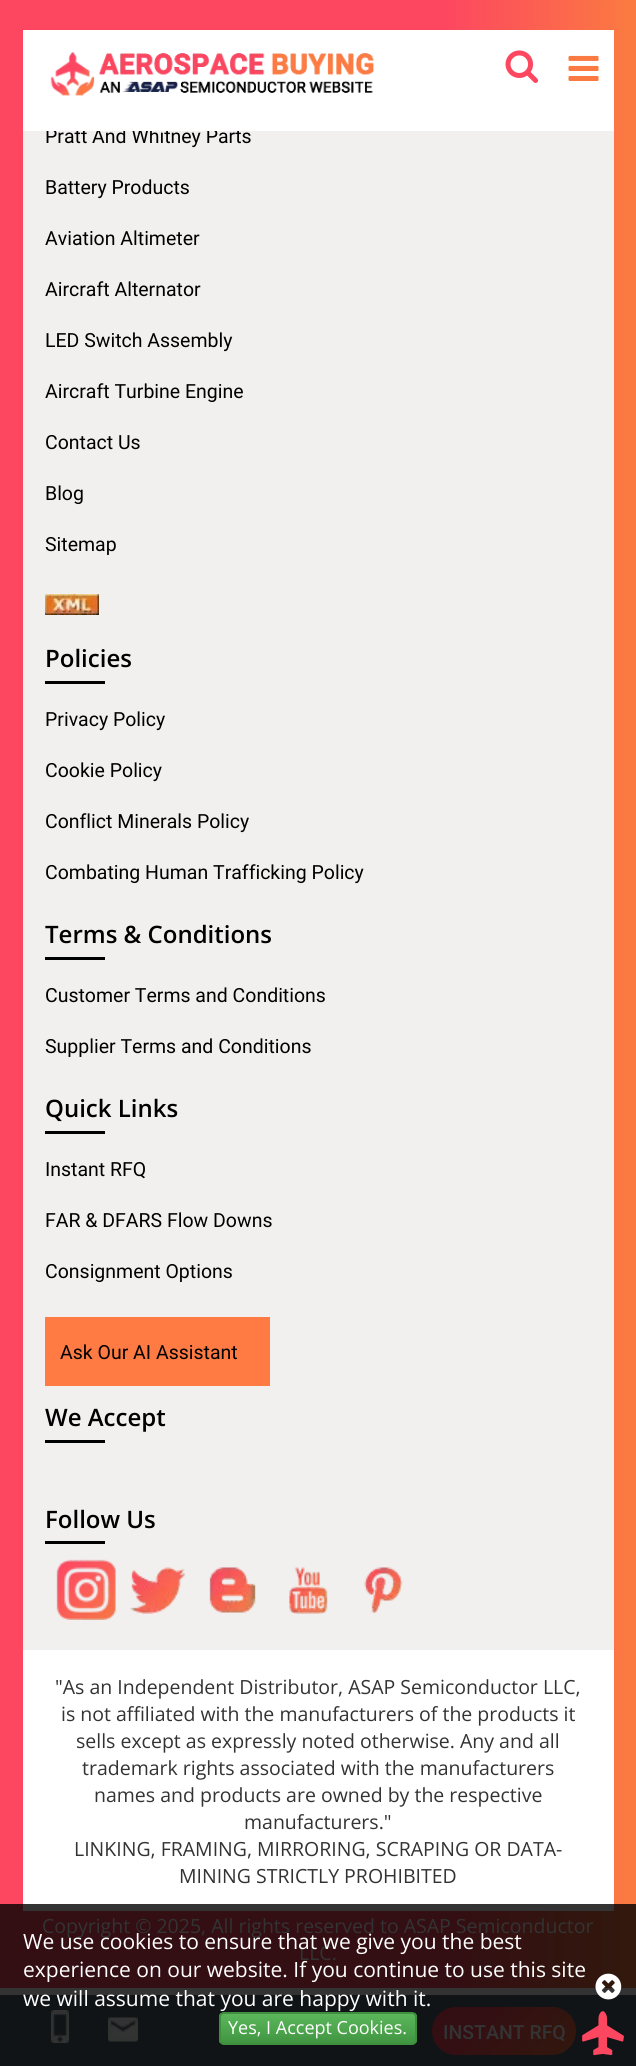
import math
import cairo

surface = cairo.ImageSurface(cairo.FORMAT_RGB24, 636, 2066)
cr = cairo.Context(surface)
options = cairo.FontOptions()
options.set_hint_metrics(cairo.HINT_METRICS_OFF)
options.set_hint_style(cairo.HINT_STYLE_NONE)
cr.set_font_options(options)
cr.set_miter_limit(4)


def rgb(code):
    cr.set_source_rgb(*(v / 255 for v in bytes.fromhex(code[-6:])))


def rrect(x, y, w, h, r):
    cr.new_sub_path()
    for i, (u, v) in enumerate([(x + w - r, y + h - r), (x + r, y + h - r), (x + r, y + r), (x + w - r, y + r)]):
        cr.arc(u, v, r, i * math.pi / 2, (i + 1) * math.pi / 2)
    cr.close_path()


def image(path, x, y, w, h):
    cr.save()
    cr.set_source_surface(cairo.ImageSurface.create_from_png(path), x, y)
    cr.rectangle(x, y, w, h)
    cr.fill()
    cr.restore()


rgb("#333333")
cr.paint()
gradient = cairo.LinearGradient(0, 668, 636, 668)
gradient.add_color_stop_rgba(0.7, 0.992, 0.278, 0.38, 1)
gradient.add_color_stop_rgba(0.99, 0.984, 0.478, 0.255, 1)
cr.set_source(gradient)
cr.rectangle(0, 75, 636, 1829)
cr.fill()
gradient = cairo.LinearGradient(0, 668, 636, 668)
gradient.add_color_stop_rgba(0.7, 0.2, 0.055, 0.075, 1)
gradient.add_color_stop_rgba(0.99, 0.196, 0.094, 0.051, 1)
cr.set_source(gradient)
cr.rectangle(0, 1904, 636, 84)
cr.fill()
rgb("#f2efef")
cr.rectangle(23, 131, 591, 1519)
cr.fill()
image("img/1.png", 45, 594, 54, 21)
for x, y, w, h, color in [
    (45, 681, 60, 3, "#000000"),
    (45, 957, 60, 3, "#000000"),
    (45, 1131, 60, 3, "#000000"),
    (45, 1317, 225, 69, "#ff7b43"),
    (45, 1440, 60, 3, "#000000"),
    (45, 1541, 60, 3, "#000000"),
]:
    rgb(color)
    cr.rectangle(x, y, w, h)
    cr.fill()
image("img/2.png", 56, 1559, 60, 61)
image("img/3.png", 130, 1567, 55, 47)
image("img/4.png", 209, 1567, 47, 46)
image("img/5.png", 289, 1567, 39, 47)
image("img/6.png", 364, 1567, 39, 46)
for x, y, w, h, color in [
    (23, 1650, 591, 254, "#ffffff"),
    (23, 1904, 591, 7, "#333333"),
    (0, 1995, 636, 71, "#111417"),
]:
    rgb(color)
    cr.rectangle(x, y, w, h)
    cr.fill()
image("img/7.png", 595, 1973, 27, 27)
cr.save()
rrect(219, 2012, 198, 33, 5)
cr.clip()
gradient = cairo.LinearGradient(318, 2013, 318, 2043)
gradient.add_color_stop_rgba(0, 0.361, 0.722, 0.361, 1)
gradient.add_color_stop_rgba(1, 0.255, 0.588, 0.255, 1)
cr.set_source(gradient)
cr.rectangle(219, 2013, 198, 30)
cr.fill()
cr.restore()
rrect(220, 2013, 196, 31, 4)
rgb("#3e8f3e")
cr.stroke()
gradient = cairo.LinearGradient(0, 38, 636, 37)
gradient.add_color_stop_rgba(0.7, 0.992, 0.278, 0.38, 1)
gradient.add_color_stop_rgba(0.99, 0.984, 0.478, 0.255, 1)
cr.set_source(gradient)
cr.rectangle(0, 0, 636, 75)
cr.fill()
image("img/11.png", 51, 2010, 18, 33)
image("img/12.png", 108, 2017, 30, 25)
gradient = cairo.LinearGradient(456, 1983, 552, 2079)
gradient.add_color_stop_rgba(0.3, 0.2, 0.055, 0.075, 1)
gradient.add_color_stop_rgba(1, 0.196, 0.094, 0.051, 1)
cr.set_source(gradient)
rrect(432, 2007, 144, 48, 24)
cr.fill()
image("img/13.png", 582, 2011, 42, 45)
cr.select_font_face("Roboto")
cr.set_font_size(19.5)
rgb("#000000")
for x, y, s in [
    (45, 143, "Pratt And Whitney Parts"),
    (45, 194, "Battery Products"),
    (45, 245, "Aviation Altimeter"),
    (45, 296, "Aircraft Alternator"),
    (45, 347, "LED Switch Assembly"),
    (45, 398, "Aircraft Turbine Engine"),
    (45, 449, "Contact Us"),
    (45, 500, "Blog"),
    (45, 551, "Sitemap"),
]:
    cr.move_to(x, y)
    cr.show_text(s)
cr.select_font_face("Open Sans SemiBold")
cr.set_font_size(24)
cr.move_to(45, 667)
cr.show_text("Policies")
cr.select_font_face("Roboto")
cr.set_font_size(19.5)
for x, y, s in [
    (45, 726, "Privacy Policy"),
    (45, 777, "Cookie Policy"),
    (45, 828, "Conflict Minerals Policy"),
    (45, 879, "Combating Human Trafficking Policy"),
]:
    cr.move_to(x, y)
    cr.show_text(s)
cr.select_font_face("Open Sans SemiBold")
cr.set_font_size(24)
cr.move_to(45, 943)
cr.show_text("Terms & Conditions")
cr.select_font_face("Roboto")
cr.set_font_size(19.5)
cr.move_to(45, 1002)
cr.show_text("Customer Terms and Conditions")
cr.move_to(45, 1053)
cr.show_text("Supplier Terms and Conditions")
cr.select_font_face("Open Sans SemiBold")
cr.set_font_size(24)
cr.move_to(45, 1117)
cr.show_text("Quick Links")
cr.select_font_face("Roboto")
cr.set_font_size(19.5)
for x, y, s in [
    (45, 1176, "Instant RFQ"),
    (45, 1227, "FAR & DFARS Flow Downs"),
    (45, 1278, "Consignment Options"),
    (60, 1359, "Ask Our AI Assistant"),
]:
    cr.move_to(x, y)
    cr.show_text(s)
cr.select_font_face("Open Sans SemiBold")
cr.set_font_size(24)
cr.move_to(45, 1426)
cr.show_text("We Accept")
cr.move_to(45, 1528)
cr.show_text("Follow Us")
cr.select_font_face("Open Sans")
cr.set_font_size(19.5)
rgb("#333333")
for x, y, s in [
    (55, 1694, "\"As an Independent Distributor, ASAP Semiconductor LLC,"),
    (61, 1721, "is not affiliated with the manufacturers of the products it"),
    (76, 1748, "sells except as expressly noted otherwise. Any and all"),
    (82, 1775, "trademark rights associated with the manufacturers"),
    (94, 1802, "names and products are owned by the respective"),
    (244, 1829, "manufacturers.\""),
    (74, 1856, "LINKING, FRAMING, MIRRORING, SCRAPING OR DATA-"),
    (179, 1883, "MINING STRICTLY PROHIBITED"),
    (42, 1933, "Copyright © 2025, All rights reserved to ASAP Semiconductor"),
    (299, 1960, "LLC."),
]:
    cr.move_to(x, y)
    cr.show_text(s)
cr.set_font_size(21)
rgb("#ffffff")
for x, y, s in [
    (23, 1949, "We use cookies to ensure that we give you the best"),
    (23, 1977, "experience on our website. If you continue to use this site"),
    (23, 2006, "we will assume that you are happy with it."),
]:
    cr.move_to(x, y)
    cr.show_text(s)
cr.set_font_size(18)
cr.move_to(228, 2034)
cr.show_text("Yes, I Accept Cookies.")
cr.rectangle(23, 30, 591, 101)
cr.fill()
image("img/8.png", 505, 50, 34, 33)
image("img/9.png", 568, 55, 31, 26)
image("img/10.png", 50, 52, 324, 44)
cr.select_font_face("Roboto Medium")
cr.set_font_size(19.5)
rgb("#333333")
cr.move_to(443, 2039)
cr.show_text("INSTANT RFQ")
surface.write_to_png("page.png")
